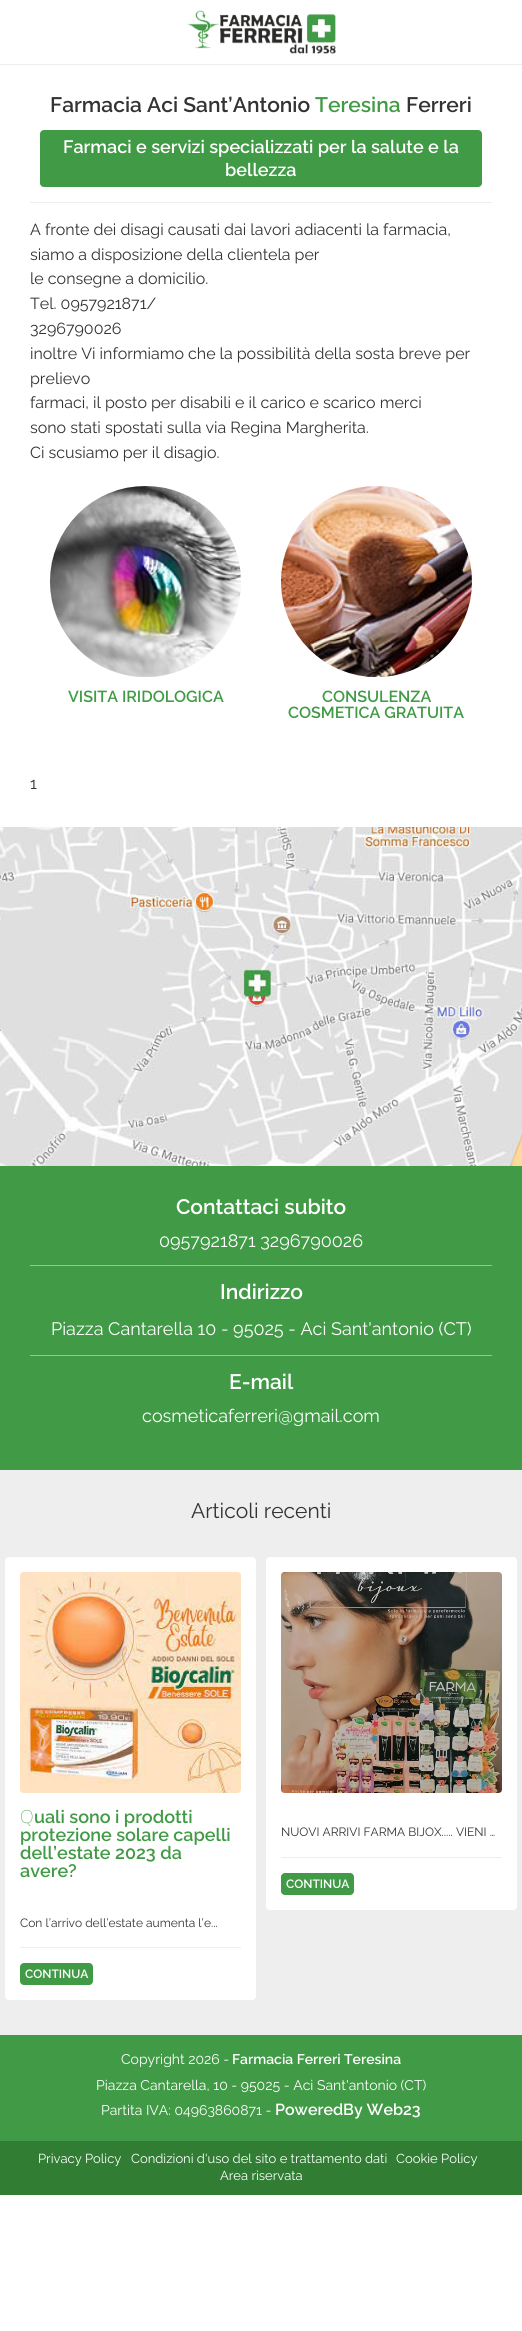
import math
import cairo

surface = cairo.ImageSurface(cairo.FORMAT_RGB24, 522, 2331)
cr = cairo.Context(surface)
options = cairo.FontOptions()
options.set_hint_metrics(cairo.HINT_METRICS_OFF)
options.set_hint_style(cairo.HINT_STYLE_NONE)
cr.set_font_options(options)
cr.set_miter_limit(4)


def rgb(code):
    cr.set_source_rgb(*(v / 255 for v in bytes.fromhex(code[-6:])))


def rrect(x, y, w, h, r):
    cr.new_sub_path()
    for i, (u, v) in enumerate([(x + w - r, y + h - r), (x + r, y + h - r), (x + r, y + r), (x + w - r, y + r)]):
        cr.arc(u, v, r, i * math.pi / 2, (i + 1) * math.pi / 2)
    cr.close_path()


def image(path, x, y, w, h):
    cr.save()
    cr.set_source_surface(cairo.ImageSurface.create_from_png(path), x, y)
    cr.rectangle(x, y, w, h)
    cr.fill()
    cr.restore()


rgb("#ffffff")
cr.paint()
rgb("#eeeeee")
cr.rectangle(0, 64, 522, 1)
cr.fill()
image("img/1.png", 187, 10, 149, 44)
rgb("#419a45")
rrect(40, 130, 442, 57, 4)
cr.fill()
rgb("#eeeeee")
cr.rectangle(30, 202, 462, 1)
cr.fill()
rgb("#f1f1f1")
cr.arc(145.5, 581.5, 95.5, 0, 2 * math.pi)
cr.fill()
image("img/2.png", 49, 486, 192, 191)
cr.arc(376.5, 581.5, 95.5, 0, 2 * math.pi)
cr.fill()
image("img/3.png", 281, 486, 191, 191)
rgb("#419a45")
cr.rectangle(0, 1166, 522, 304)
cr.fill()
image("img/4.png", 0, 827, 522, 339)
for x, y, w, h, color in [
    (30, 1265, 462, 1, "#98c49a"),
    (30, 1355, 462, 1, "#98c49a"),
    (0, 1470, 522, 565, "#eeeeee"),
]:
    rgb(color)
    cr.rectangle(x, y, w, h)
    cr.fill()
rgb("#ffffff")
rrect(5, 1557, 251, 443, 4)
cr.fill()
image("img/5.png", 20, 1572, 221, 221)
rgb("#eeeeee")
cr.rectangle(20, 1947, 221, 1)
cr.fill()
rgb("#419a45")
rrect(20, 1963, 73, 22, 4)
cr.fill()
rgb("#ffffff")
rrect(266, 1557, 251, 353, 4)
cr.fill()
image("img/6.png", 281, 1572, 221, 221)
rgb("#eeeeee")
cr.rectangle(281, 1857, 221, 1)
cr.fill()
rgb("#419a45")
rrect(281, 1873, 73, 22, 4)
cr.fill()
cr.rectangle(0, 2035, 522, 106)
cr.fill()
rgb("#307d33")
cr.rectangle(0, 2141, 522, 54)
cr.fill()
cr.select_font_face("Raleway SemiBold")
cr.set_font_size(21)
rgb("#333333")
cr.move_to(50, 112)
cr.show_text("Farmacia Aci Sant’Antonio")
rgb("#419a45")
cr.move_to(315, 112)
cr.show_text("Teresina")
rgb("#333333")
cr.move_to(406, 112)
cr.show_text("Ferreri")
cr.set_font_size(18)
rgb("#ffffff")
cr.move_to(63, 153)
cr.show_text("Farmaci e servizi specializzati per la salute e la")
cr.move_to(225, 176)
cr.show_text("bellezza")
cr.select_font_face("Raleway")
cr.set_font_size(16)
rgb("#333333")
for x, y, s in [
    (30, 235, "A fronte dei disagi causati dai lavori adiacenti la farmacia,"),
    (30, 260, "siamo a disposizione della clientela per"),
    (30, 284, "le consegne a domicilio."),
    (30, 309, "Tel. 0957921871/"),
    (30, 334, "3296790026"),
    (30, 359, "inoltre Vi informiamo che la possibilità della sosta breve per"),
    (30, 384, "prelievo"),
    (30, 408, "farmaci, il posto per disabili e il carico e scarico merci"),
    (30, 433, "sono stati spostati sulla via Regina Margherita."),
    (30, 458, "Ci scusiamo per il disagio."),
]:
    cr.move_to(x, y)
    cr.show_text(s)
cr.select_font_face("Raleway SemiBold")
rgb("#419a45")
for x, y, s in [
    (68, 702, "VISITA IRIDOLOGICA"),
    (322, 702, "CONSULENZA"),
    (288, 718, "COSMETICA GRATUITA"),
]:
    cr.move_to(x, y)
    cr.show_text(s)
cr.select_font_face("Raleway")
rgb("#333333")
cr.move_to(30, 789)
cr.show_text("1")
cr.select_font_face("Raleway SemiBold")
cr.set_font_size(21)
rgb("#ffffff")
cr.move_to(176, 1214)
cr.show_text("Contattaci subito")
cr.select_font_face("Raleway")
cr.set_font_size(18)
cr.move_to(159, 1247)
cr.show_text("0957921871 3296790026")
cr.select_font_face("Raleway SemiBold")
cr.set_font_size(21)
cr.move_to(220, 1299)
cr.show_text("Indirizzo")
cr.select_font_face("Raleway")
cr.set_font_size(18)
cr.move_to(51, 1335)
cr.show_text("Piazza Cantarella 10 - 95025 - Aci Sant'antonio (CT)")
cr.select_font_face("Raleway SemiBold")
cr.set_font_size(21)
cr.move_to(229, 1389)
cr.show_text("E-mail")
cr.select_font_face("Raleway")
cr.set_font_size(18)
cr.move_to(142, 1422)
cr.show_text("cosmeticaferreri@gmail.com")
cr.set_font_size(21)
rgb("#333333")
cr.move_to(191, 1518)
cr.show_text("Articoli recenti")
cr.select_font_face("Noto Sans Thin")
cr.set_font_size(18)
rgb("#419a45")
cr.move_to(20, 1823)
cr.show_text("Q")
cr.select_font_face("Raleway SemiBold")
for x, y, s in [
    (34, 1823, "uali sono i prodotti"),
    (20, 1841, "protezione solare capelli"),
    (20, 1859, "dell’estate 2023 da"),
    (20, 1877, "avere?"),
]:
    cr.move_to(x, y)
    cr.show_text(s)
cr.select_font_face("Raleway")
cr.set_font_size(12)
rgb("#333333")
cr.move_to(20, 1927)
cr.show_text("Con l’arrivo dell’estate aumenta l’e...")
cr.select_font_face("Raleway SemiBold")
rgb("#ffffff")
cr.move_to(25, 1978)
cr.show_text("CONTINUA")
cr.select_font_face("Raleway")
rgb("#333333")
cr.move_to(281, 1836)
cr.show_text("NUOVI ARRIVI FARMA BIJOX..... VIENI …")
cr.select_font_face("Raleway SemiBold")
rgb("#ffffff")
cr.move_to(286, 1888)
cr.show_text("CONTINUA")
cr.select_font_face("Raleway")
cr.set_font_size(14)
cr.move_to(121, 2064)
cr.show_text("Copyright 2026 -")
cr.select_font_face("Raleway SemiBold")
cr.move_to(232, 2064)
cr.show_text("Farmacia Ferreri Teresina")
cr.select_font_face("Raleway")
cr.move_to(96, 2090)
cr.show_text("Piazza Cantarella, 10 - 95025 - Aci Sant'antonio (CT)")
cr.move_to(101, 2115)
cr.show_text("Partita IVA: 04963860871 -")
cr.select_font_face("Raleway SemiBold")
cr.set_font_size(16)
cr.move_to(275, 2115)
cr.show_text("PoweredBy Web23")
cr.select_font_face("Raleway")
cr.set_font_size(13)
for x, y, s in [
    (38, 2163, "Privacy Policy"),
    (131, 2163, "Condizioni d'uso del sito e trattamento dati"),
    (396, 2163, "Cookie Policy"),
    (220, 2180, "Area riservata"),
]:
    cr.move_to(x, y)
    cr.show_text(s)
surface.write_to_png("page.png")
